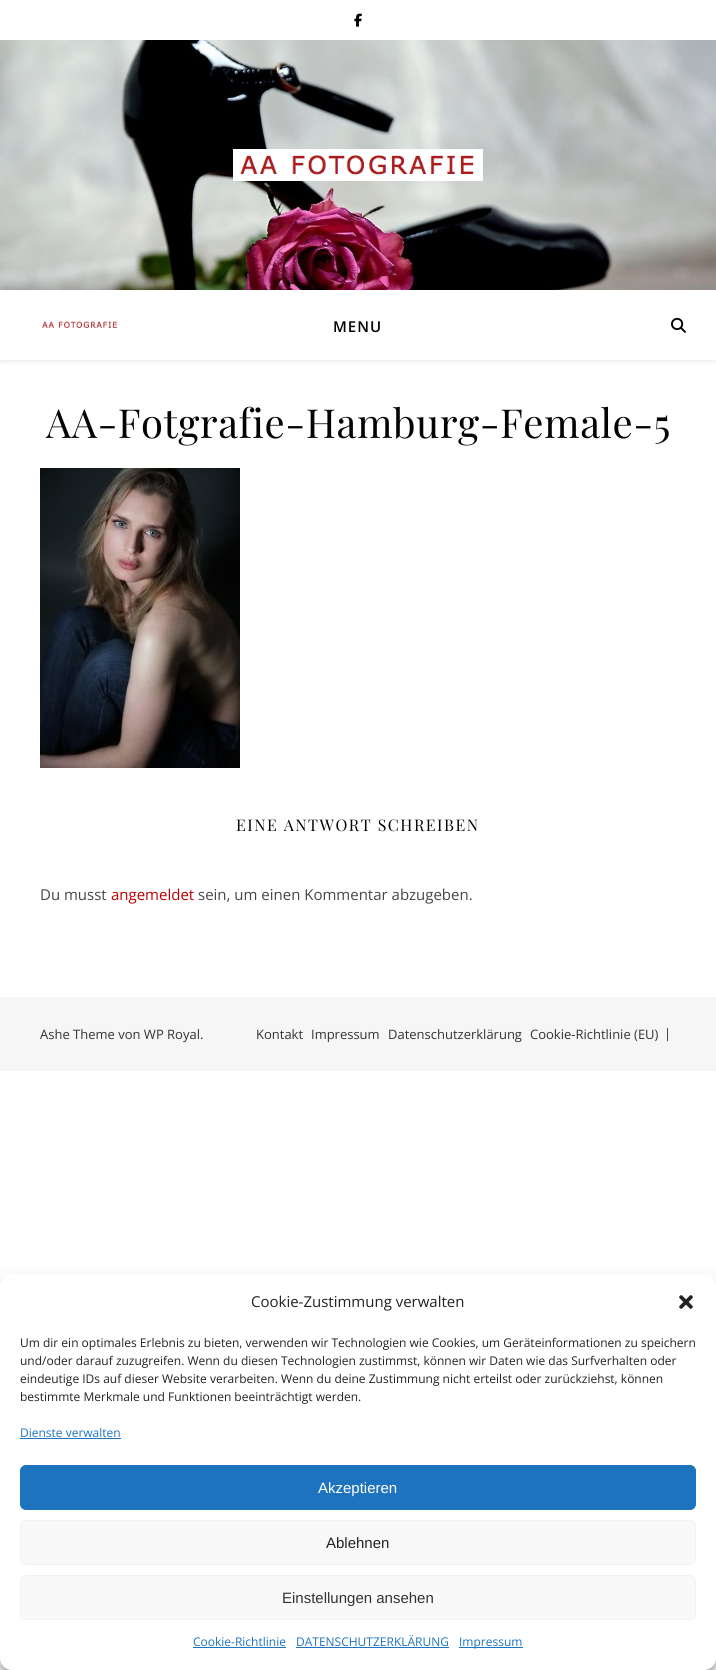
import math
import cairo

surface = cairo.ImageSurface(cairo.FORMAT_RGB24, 716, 1670)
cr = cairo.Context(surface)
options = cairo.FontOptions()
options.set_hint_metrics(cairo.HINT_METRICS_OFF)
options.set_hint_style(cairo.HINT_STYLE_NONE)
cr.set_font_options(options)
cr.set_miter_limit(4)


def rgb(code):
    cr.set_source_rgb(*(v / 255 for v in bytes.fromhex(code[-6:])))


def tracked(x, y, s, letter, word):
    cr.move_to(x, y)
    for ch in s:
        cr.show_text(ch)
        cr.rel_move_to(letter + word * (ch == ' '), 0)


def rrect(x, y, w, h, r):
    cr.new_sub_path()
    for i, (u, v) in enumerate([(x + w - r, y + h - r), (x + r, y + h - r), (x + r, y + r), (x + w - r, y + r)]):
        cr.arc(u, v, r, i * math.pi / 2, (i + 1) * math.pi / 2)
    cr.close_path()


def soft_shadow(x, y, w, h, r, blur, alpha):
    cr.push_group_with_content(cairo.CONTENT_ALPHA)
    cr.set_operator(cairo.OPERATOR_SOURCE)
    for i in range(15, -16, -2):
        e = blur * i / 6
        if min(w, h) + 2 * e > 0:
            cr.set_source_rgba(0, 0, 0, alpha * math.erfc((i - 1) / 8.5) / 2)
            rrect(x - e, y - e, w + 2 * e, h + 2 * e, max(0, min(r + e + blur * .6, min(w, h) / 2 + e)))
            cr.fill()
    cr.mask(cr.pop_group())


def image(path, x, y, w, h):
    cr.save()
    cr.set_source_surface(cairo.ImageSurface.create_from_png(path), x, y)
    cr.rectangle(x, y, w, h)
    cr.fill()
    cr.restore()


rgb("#ffffff")
cr.paint()
image("img/1.png", 354, 13, 8, 14)
image("img/2.png", 0, 40, 716, 250)
image("img/3.png", 233, 149, 250, 32)
cr.save()
cr.set_fill_rule(cairo.FILL_RULE_EVEN_ODD)
cr.new_path()
cr.move_to(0, 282)
cr.line_to(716, 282)
cr.line_to(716, 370)
cr.line_to(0, 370)
cr.close_path()
cr.move_to(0, 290)
cr.line_to(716, 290)
cr.line_to(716, 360)
cr.line_to(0, 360)
cr.close_path()
cr.clip()
rgb("#000000")
soft_shadow(0, 291, 716, 70, 0, 2.5, 0.1)
cr.restore()
image("img/4.png", 42, 321, 76, 7)
image("img/5.png", 671, 317, 15, 16)
image("img/6.png", 40, 468, 200, 300)
rgb("#f6f6f6")
cr.rectangle(0, 997, 716, 74)
cr.fill()
rgb("#000000")
soft_shadow(0, 1280, 716, 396, 12, 3, 0.23)
soft_shadow(0, 1284, 716, 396, 12, 10, 0.19)
rgb("#ffffff")
rrect(0, 1274, 716, 396, 12)
cr.fill()
image("img/7.png", 679, 1295, 14, 14)
rgb("#1e73be")
cr.rectangle(20, 1438, 101, 1)
cr.fill()
rrect(20.5, 1465.5, 675, 44, 5.5)
cr.fill_preserve()
cr.set_line_width(1)
cr.stroke()
rgb("#f9f9f9")
rrect(20.5, 1520.5, 675, 44, 5.5)
cr.fill_preserve()
rgb("#f2f2f2")
cr.stroke()
rgb("#f9f9f9")
rrect(20.5, 1575.5, 675, 44, 5.5)
cr.fill_preserve()
rgb("#f2f2f2")
cr.stroke()
for x, y, w, h, color in [
    (193, 1647, 93, 1, "#1e73be"),
    (296, 1647, 153, 1, "#1e73be"),
    (459, 1647, 64, 1, "#1e73be"),
]:
    rgb(color)
    cr.rectangle(x, y, w, h)
    cr.fill()
cr.select_font_face("Open Sans SemiBold")
cr.set_font_size(15)
rgb("#030303")
tracked(333, 332, "MENU", 1, 0)
cr.select_font_face("Playfair Display")
cr.set_font_size(40)
tracked(46, 438, "AA-Fotgrafie-Hamburg-Female-5", 0.5, 0)
cr.set_font_size(16)
tracked(236, 831, "EINE ANTWORT SCHREIBEN", 1.5, 0)
cr.select_font_face("Open Sans")
cr.set_font_size(15)
rgb("#464646")
cr.move_to(40, 900)
cr.show_text("Du musst")
rgb("#bc0000")
cr.move_to(111, 900)
cr.show_text("angemeldet")
rgb("#464646")
cr.move_to(198, 900)
cr.show_text("sein, um einen Kommentar abzugeben.")
cr.set_font_size(13)
rgb("#333333")
for x, y, s in [
    (40, 1039, "Ashe Theme von WP Royal."),
    (256, 1039, "Kontakt"),
    (311, 1039, "Impressum"),
    (388, 1039, "Datenschutzerklärung"),
    (530, 1039, "Cookie-Richtlinie (EU)"),
    (664, 1038, "|"),
]:
    cr.move_to(x, y)
    cr.show_text(s)
cr.set_font_size(15)
rgb("#222222")
cr.move_to(251, 1307)
cr.show_text("Cookie-Zustimmung verwalten")
cr.set_font_size(12)
for x, y, s in [
    (20, 1347, "Um dir ein optimales Erlebnis zu bieten, verwenden wir Technologien wie Cookies, um Geräteinformationen zu speichern"),
    (20, 1365, "und/oder darauf zuzugreifen. Wenn du diesen Technologien zustimmst, können wir Daten wie das Surfverhalten oder"),
    (20, 1383, "eindeutige IDs auf dieser Website verarbeiten. Wenn du deine Zustimmung nicht erteilst oder zurückziehst, können"),
    (20, 1401, "bestimmte Merkmale und Funktionen beeinträchtigt werden."),
]:
    cr.move_to(x, y)
    cr.show_text(s)
rgb("#1e73be")
cr.move_to(20, 1437)
cr.show_text("Dienste verwalten")
cr.select_font_face("Liberation Sans")
cr.set_font_size(15)
rgb("#ffffff")
cr.move_to(318, 1493)
cr.show_text("Akzeptieren")
rgb("#222222")
cr.move_to(326, 1548)
cr.show_text("Ablehnen")
rgb("#333333")
cr.move_to(282, 1603)
cr.show_text("Einstellungen ansehen")
cr.select_font_face("Open Sans")
cr.set_font_size(12)
rgb("#1e73be")
for x, y, s in [
    (193, 1646, "Cookie-Richtlinie"),
    (296, 1646, "DATENSCHUTZERKLÄRUNG"),
    (459, 1646, "Impressum"),
]:
    cr.move_to(x, y)
    cr.show_text(s)
surface.write_to_png("page.png")
